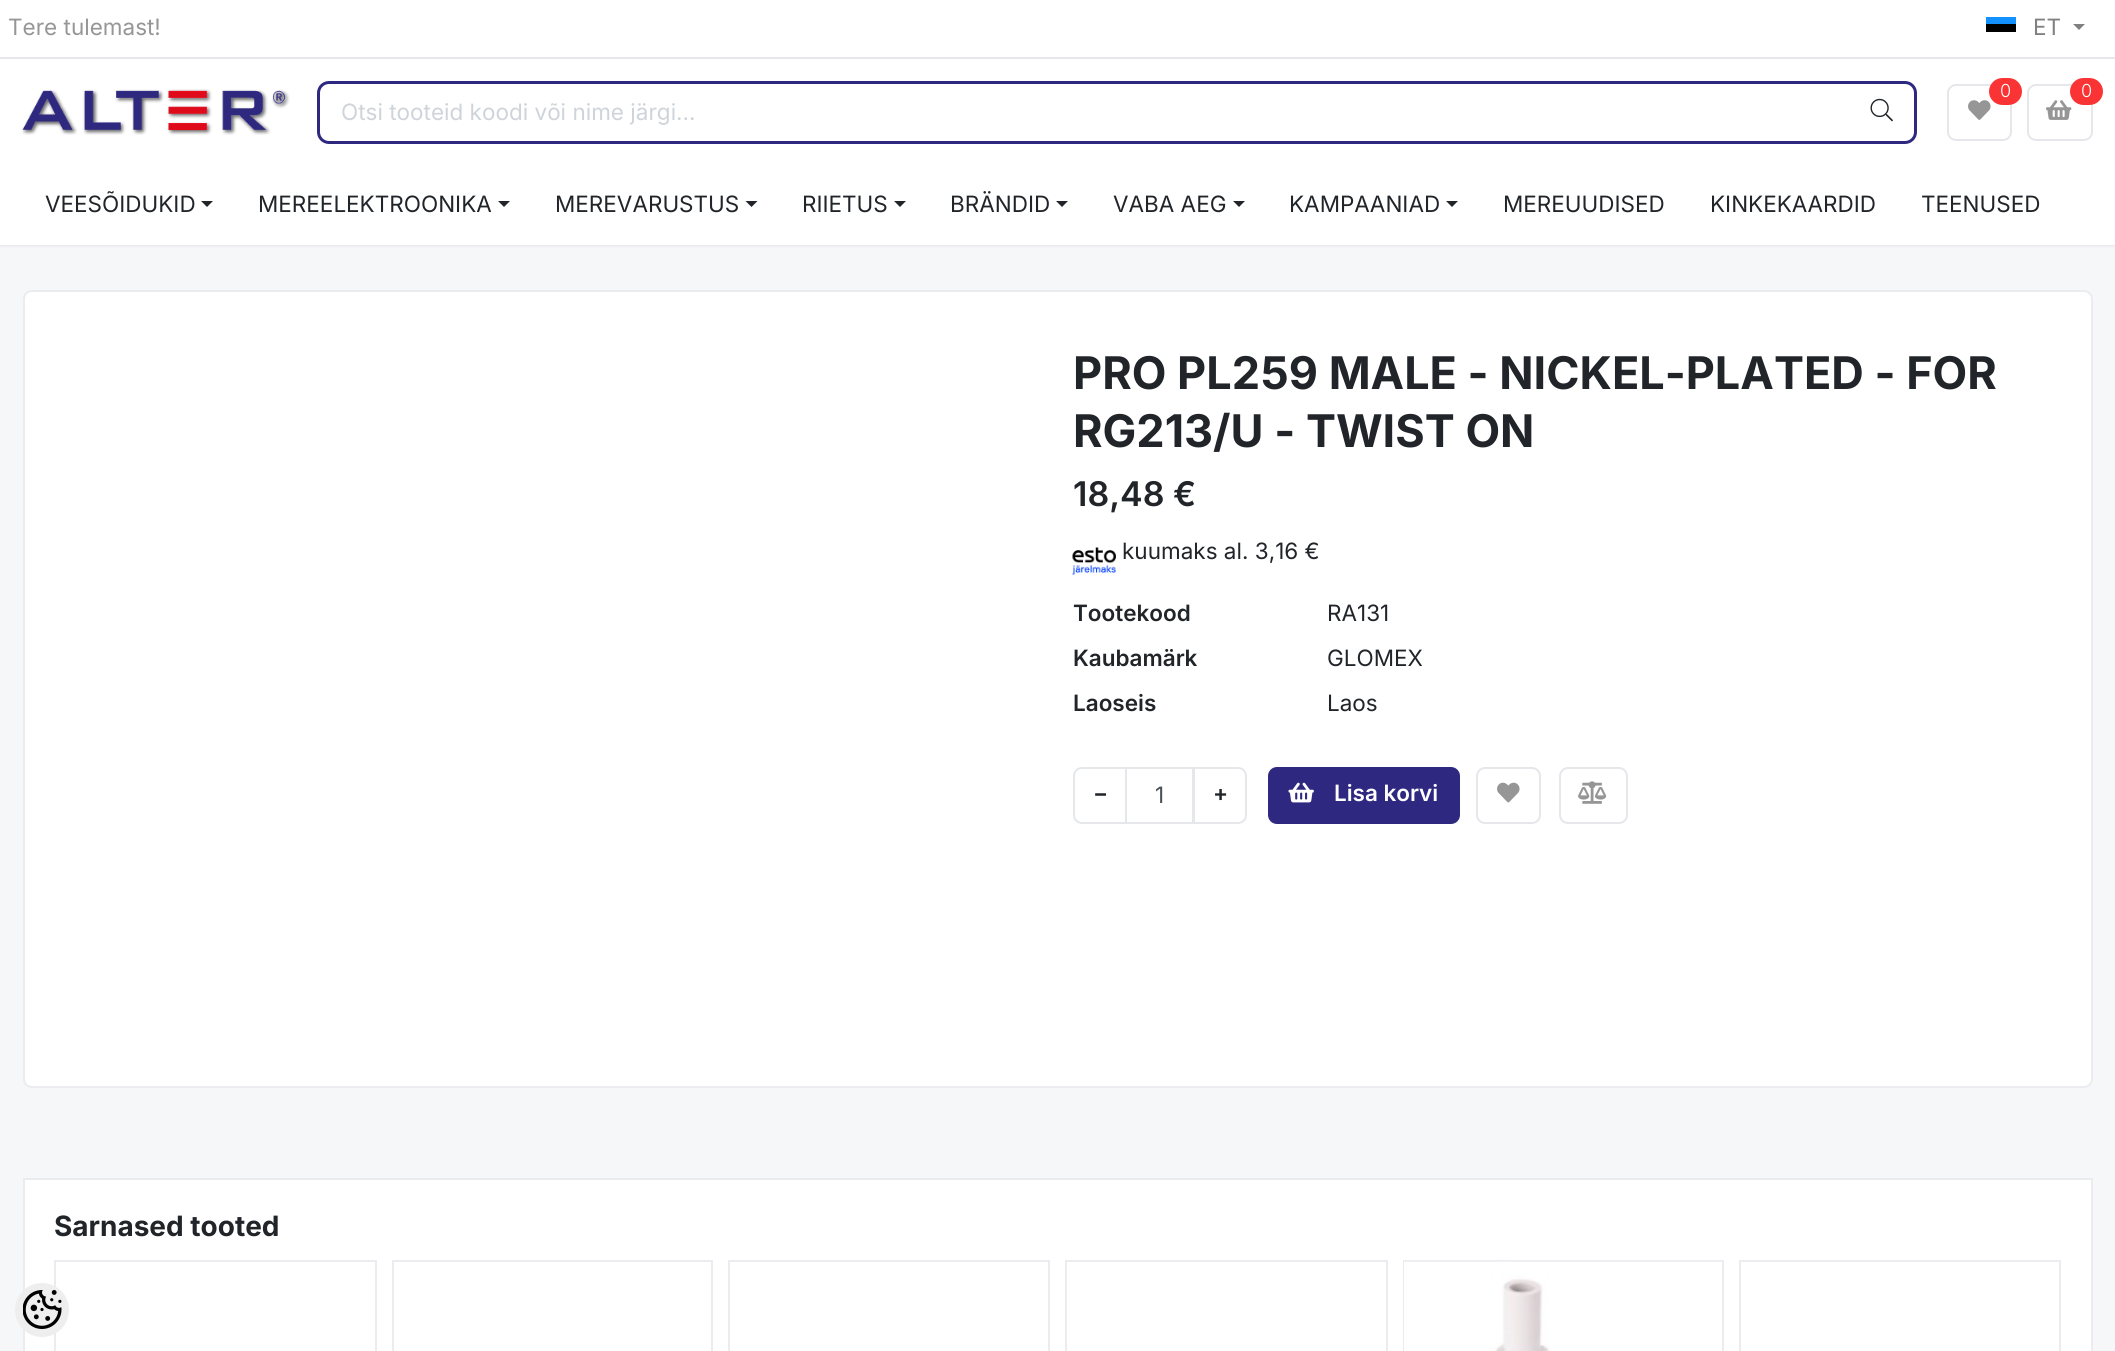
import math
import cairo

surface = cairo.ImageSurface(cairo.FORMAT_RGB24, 2115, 1351)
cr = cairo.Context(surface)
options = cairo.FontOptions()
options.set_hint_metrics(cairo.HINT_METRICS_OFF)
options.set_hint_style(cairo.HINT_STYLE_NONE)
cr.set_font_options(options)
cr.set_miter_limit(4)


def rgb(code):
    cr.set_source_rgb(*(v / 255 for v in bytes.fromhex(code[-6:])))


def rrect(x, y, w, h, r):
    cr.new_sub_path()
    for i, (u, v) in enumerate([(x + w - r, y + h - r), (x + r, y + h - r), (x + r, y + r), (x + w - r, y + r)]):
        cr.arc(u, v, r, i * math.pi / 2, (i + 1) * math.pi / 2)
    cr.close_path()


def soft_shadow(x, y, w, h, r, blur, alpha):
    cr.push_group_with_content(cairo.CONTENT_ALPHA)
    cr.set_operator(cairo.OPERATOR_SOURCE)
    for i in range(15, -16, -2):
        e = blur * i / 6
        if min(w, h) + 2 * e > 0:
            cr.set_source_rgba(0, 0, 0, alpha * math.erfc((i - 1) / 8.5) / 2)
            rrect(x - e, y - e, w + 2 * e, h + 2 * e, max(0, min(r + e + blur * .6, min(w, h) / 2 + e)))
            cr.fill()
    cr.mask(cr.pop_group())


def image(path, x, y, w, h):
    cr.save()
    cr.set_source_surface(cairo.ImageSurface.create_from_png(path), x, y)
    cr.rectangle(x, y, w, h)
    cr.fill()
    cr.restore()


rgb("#f6f7f9")
cr.paint()
rgb("#333333")
soft_shadow(0, 0, 2115, 245, 0, 2, 0.15)
for x, y, w, h, color in [
    (0, 0, 2115, 245, "#ffffff"),
    (0, 57, 2115, 2, "#e5e7ea"),
    (1986, 24, 30, 8, "#000000"),
    (1986, 17, 30, 7, "#1291ff"),
]:
    rgb(color)
    cr.rectangle(x, y, w, h)
    cr.fill()
rgb("#808080")
cr.new_path()
cr.move_to(2073, 24)
cr.line_to(2085, 24)
cr.line_to(2079, 30)
cr.close_path()
cr.fill()
image("img/1.png", 22, 89, 268, 46)
rrect(318.5, 82.5, 1597, 60, 10.5)
rgb("#2e2880")
cr.set_line_width(3)
cr.stroke()
image("img/2.png", 1870, 98, 23, 24)
rrect(1948, 85, 63, 55, 8)
rgb("#e5e7ea")
cr.set_line_width(2)
cr.stroke()
image("img/3.png", 1968, 100, 23, 20)
rgb("#fa3434")
rrect(1989, 78, 33, 27, 13.5)
cr.fill()
rrect(2028, 85, 64, 55, 8)
rgb("#e5e7ea")
cr.stroke()
image("img/4.png", 2046, 100, 26, 20)
rgb("#fa3434")
rrect(2070, 78, 33, 27, 13.5)
cr.fill()
rgb("#212529")
cr.new_path()
cr.move_to(201, 201)
cr.line_to(213, 201)
cr.line_to(207, 207)
cr.close_path()
cr.fill()
cr.new_path()
cr.move_to(498, 201)
cr.line_to(510, 201)
cr.line_to(504, 207)
cr.close_path()
cr.fill()
cr.new_path()
cr.move_to(745.5, 201)
cr.line_to(757.5, 201)
cr.line_to(751.5, 207)
cr.close_path()
cr.fill()
cr.new_path()
cr.move_to(894, 201)
cr.line_to(906, 201)
cr.line_to(900, 207)
cr.close_path()
cr.fill()
cr.new_path()
cr.move_to(1056, 201)
cr.line_to(1068, 201)
cr.line_to(1062, 207)
cr.close_path()
cr.fill()
cr.new_path()
cr.move_to(1233, 201)
cr.line_to(1245, 201)
cr.line_to(1239, 207)
cr.close_path()
cr.fill()
cr.new_path()
cr.move_to(1446, 201)
cr.line_to(1458, 201)
cr.line_to(1452, 207)
cr.close_path()
cr.fill()
rgb("#ffffff")
rrect(24, 291, 2068, 796, 8)
cr.fill_preserve()
rgb("#ebecf0")
cr.stroke()
image("img/5.png", 1072, 547, 44, 28)
cr.rectangle(1126, 768, 67, 55)
rgb("#e5e7ea")
cr.stroke()
rgb("#ffffff")
cr.new_path()
cr.move_to(1082, 768)
cr.line_to(1126, 768)
cr.line_to(1126, 823)
cr.line_to(1082, 823)
cr.curve_to(1077.5, 823, 1074, 819.5, 1074, 815)
cr.line_to(1074, 776)
cr.curve_to(1074, 771.5, 1077.5, 768, 1082, 768)
cr.close_path()
cr.fill_preserve()
rgb("#e5e7ea")
cr.stroke()
rgb("#ffffff")
cr.new_path()
cr.move_to(1194, 768)
cr.line_to(1238, 768)
cr.curve_to(1242.5, 768, 1246, 771.5, 1246, 776)
cr.line_to(1246, 815)
cr.curve_to(1246, 819.5, 1242.5, 823, 1238, 823)
cr.line_to(1194, 823)
cr.close_path()
cr.fill_preserve()
rgb("#e5e7ea")
cr.stroke()
rgb("#2e2880")
rrect(1269, 768, 190, 55, 8)
cr.fill_preserve()
cr.stroke()
image("img/6.png", 1288, 782, 26, 21)
rrect(1477, 768, 63, 55, 8)
rgb("#e5e7ea")
cr.stroke()
image("img/7.png", 1497, 782, 23, 21)
rrect(1560, 768, 67, 55, 8)
cr.stroke()
image("img/8.png", 1578, 781, 29, 23)
rgb("#ffffff")
cr.rectangle(24, 1179, 2068, 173)
cr.fill_preserve()
rgb("#ebecf0")
cr.stroke()
cr.rectangle(55, 1261, 321, 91)
cr.stroke()
cr.rectangle(393, 1261, 319, 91)
cr.stroke()
cr.rectangle(729, 1261, 320, 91)
cr.stroke()
cr.rectangle(1066, 1261, 321, 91)
cr.stroke()
cr.rectangle(1404, 1261, 319, 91)
cr.stroke()
image("img/9.png", 1404, 1261, 318, 90)
cr.rectangle(1740, 1261, 320, 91)
cr.stroke()
rgb("#eeeeee")
cr.arc(42, 1310, 27, 0, 2 * math.pi)
cr.fill()
image("img/10.png", 23, 1290, 39, 39)
cr.select_font_face("Inter")
cr.set_font_size(22.5)
rgb("#969696")
cr.move_to(8, 35)
cr.show_text("Tere tulemast!")
rgb("#808080")
cr.move_to(2033, 35)
cr.show_text("ET")
rgb("#ced4da")
cr.move_to(341, 120)
cr.show_text("Otsi tooteid koodi või nime järgi...")
cr.select_font_face("Inter Light")
cr.set_font_size(18)
rgb("#ffffff")
cr.move_to(2000, 97)
cr.show_text("0")
cr.move_to(2081, 97)
cr.show_text("0")
cr.select_font_face("Inter")
cr.set_font_size(22.5)
rgb("#212529")
for x, y, s in [
    (45, 212, "VEESÕIDUKID"),
    (258, 212, "MEREELEKTROONIKA"),
    (555, 212, "MEREVARUSTUS"),
    (802, 212, "RIIETUS"),
    (950, 212, "BRÄNDID"),
    (1113, 212, "VABA AEG"),
    (1289, 212, "KAMPAANIAD"),
    (1503, 212, "MEREUUDISED"),
    (1710, 212, "KINKEKAARDID"),
    (1921, 212, "TEENUSED"),
]:
    cr.move_to(x, y)
    cr.show_text(s)
cr.select_font_face("Inter", cairo.FONT_SLANT_NORMAL, cairo.FONT_WEIGHT_BOLD)
cr.set_font_size(45)
cr.move_to(1073, 389)
cr.show_text("PRO PL259 MALE - NICKEL-PLATED - FOR")
cr.move_to(1073, 447)
cr.show_text("RG213/U - TWIST ON")
cr.select_font_face("Inter SemiBold")
cr.set_font_size(34)
cr.move_to(1073, 506)
cr.show_text("18,48 €")
cr.select_font_face("Inter")
cr.set_font_size(22.5)
cr.move_to(1122, 559)
cr.show_text("kuumaks al. 3,16 €")
cr.select_font_face("Inter SemiBold")
cr.move_to(1073, 621)
cr.show_text("Tootekood")
cr.select_font_face("Inter")
cr.move_to(1327, 621)
cr.show_text("RA131")
cr.select_font_face("Inter SemiBold")
cr.move_to(1073, 666)
cr.show_text("Kaubamärk")
cr.select_font_face("Inter")
cr.move_to(1327, 666)
cr.show_text("GLOMEX")
cr.select_font_face("Inter SemiBold")
cr.move_to(1073, 711)
cr.show_text("Laoseis")
cr.select_font_face("Inter")
cr.move_to(1327, 711)
cr.show_text("Laos")
cr.select_font_face("Inter SemiBold")
cr.move_to(1093, 801)
cr.show_text("−")
cr.select_font_face("Inter")
rgb("#495057")
cr.move_to(1155, 803)
cr.show_text("1")
cr.select_font_face("Inter SemiBold")
rgb("#212529")
cr.move_to(1213, 801)
cr.show_text("+")
rgb("#ffffff")
cr.move_to(1334, 801)
cr.show_text("Lisa korvi")
cr.select_font_face("Inter", cairo.FONT_SLANT_NORMAL, cairo.FONT_WEIGHT_BOLD)
cr.set_font_size(28)
rgb("#212529")
cr.move_to(54, 1236)
cr.show_text("Sarnased tooted")
surface.write_to_png("page.png")
